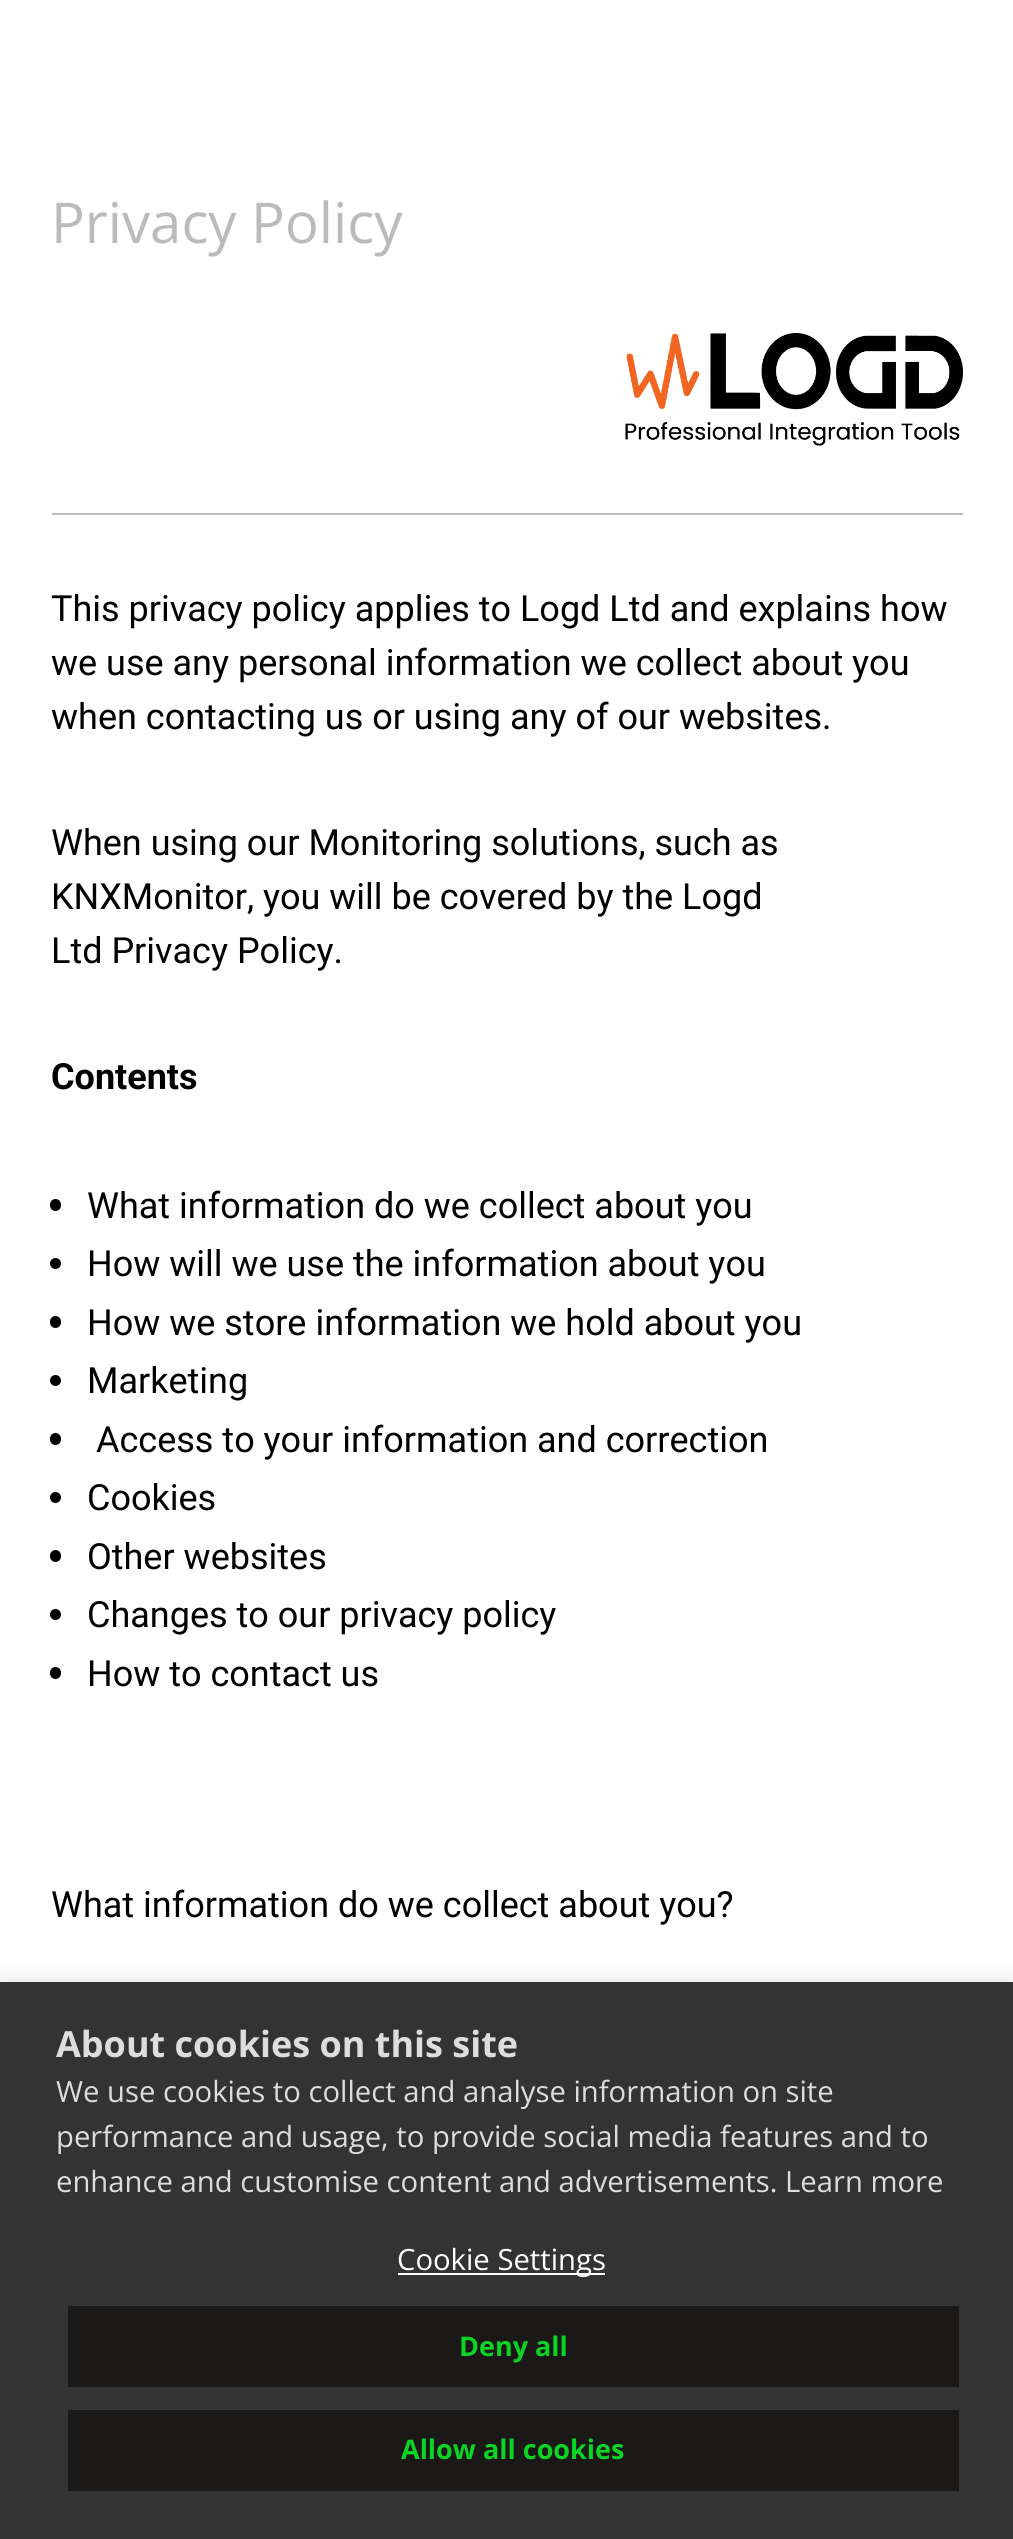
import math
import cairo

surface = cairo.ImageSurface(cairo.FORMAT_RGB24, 1013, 2539)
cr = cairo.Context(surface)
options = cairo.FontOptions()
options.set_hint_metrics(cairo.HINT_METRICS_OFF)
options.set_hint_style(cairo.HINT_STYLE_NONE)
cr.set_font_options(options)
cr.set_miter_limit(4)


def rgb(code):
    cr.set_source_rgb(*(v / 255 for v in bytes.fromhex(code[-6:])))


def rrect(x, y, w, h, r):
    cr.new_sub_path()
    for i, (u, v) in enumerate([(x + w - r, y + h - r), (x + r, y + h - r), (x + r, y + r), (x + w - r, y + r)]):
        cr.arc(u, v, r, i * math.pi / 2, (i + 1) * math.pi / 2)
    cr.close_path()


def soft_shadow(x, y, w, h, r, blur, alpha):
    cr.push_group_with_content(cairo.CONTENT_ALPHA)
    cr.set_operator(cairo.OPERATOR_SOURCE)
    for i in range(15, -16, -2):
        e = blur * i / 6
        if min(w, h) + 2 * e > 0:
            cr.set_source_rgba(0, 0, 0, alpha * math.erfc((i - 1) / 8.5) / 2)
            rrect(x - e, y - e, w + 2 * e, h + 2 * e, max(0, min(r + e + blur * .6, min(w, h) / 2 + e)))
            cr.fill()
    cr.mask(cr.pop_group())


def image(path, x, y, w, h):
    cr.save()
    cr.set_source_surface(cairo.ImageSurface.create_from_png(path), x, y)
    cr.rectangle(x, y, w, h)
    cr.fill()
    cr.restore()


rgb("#ffffff")
cr.paint()
rgb("#bbbbbb")
cr.rectangle(52, 513, 911, 2)
cr.fill()
image("img/1.png", 625, 333, 338, 113)
rgb("#000000")
rrect(50, 1199, 11, 12, 5.5)
cr.fill()
cr.arc(55.5, 1263.5, 5.5, 0, 2 * math.pi)
cr.fill()
rrect(50, 1316, 11, 12, 5.5)
cr.fill()
cr.arc(55.5, 1380.5, 5.5, 0, 2 * math.pi)
cr.fill()
rrect(50, 1433, 11, 12, 5.5)
cr.fill()
cr.arc(55.5, 1497.5, 5.5, 0, 2 * math.pi)
cr.fill()
rrect(50, 1550, 11, 12, 5.5)
cr.fill()
cr.arc(55.5, 1614.5, 5.5, 0, 2 * math.pi)
cr.fill()
rrect(50, 1667, 11, 12, 5.5)
cr.fill()
rgb("#acabab")
soft_shadow(0, 1980, 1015, 558, 0, 11, 0.3)
for x, y, w, h, color in [
    (0, 1982, 1013, 557, "#333333"),
    (398, 2273, 207, 2, "#ffffff"),
    (68, 2306, 891, 81, "#1b1818"),
    (68, 2410, 891, 81, "#1b1818"),
]:
    rgb(color)
    cr.rectangle(x, y, w, h)
    cr.fill()
cr.select_font_face("Open Sans")
cr.set_font_size(56.25)
rgb("#bbbbbb")
cr.move_to(51, 243)
cr.show_text("Privacy Policy")
cr.select_font_face("Roboto")
cr.set_font_size(36)
rgb("#000000")
for x, y, s in [
    (51, 621, "This privacy policy applies to Logd Ltd and explains how"),
    (51, 675, "we use any personal information we collect about you"),
    (51, 729, "when contacting us or using any of our websites."),
    (51, 855, "When using our Monitoring solutions, such as"),
    (51, 909, "KNXMonitor, you will be covered by the Logd"),
    (51, 963, "Ltd Privacy Policy."),
]:
    cr.move_to(x, y)
    cr.show_text(s)
cr.select_font_face("Roboto", cairo.FONT_SLANT_NORMAL, cairo.FONT_WEIGHT_BOLD)
cr.move_to(51, 1089)
cr.show_text("Contents")
cr.select_font_face("Roboto")
for x, y, s in [
    (87, 1218, "What information do we collect about you"),
    (87, 1276, "How will we use the information about you"),
    (87, 1335, "How we store information we hold about you"),
    (87, 1393, "Marketing"),
    (96, 1452, "Access to your information and correction"),
    (87, 1510, "Cookies"),
    (87, 1569, "Other websites"),
    (87, 1627, "Changes to our privacy policy"),
    (87, 1686, "How to contact us"),
    (51, 1917, "What information do we collect about you?"),
]:
    cr.move_to(x, y)
    cr.show_text(s)
cr.select_font_face("Open Sans", cairo.FONT_SLANT_NORMAL, cairo.FONT_WEIGHT_BOLD)
rgb("#dddddd")
cr.move_to(56, 2057)
cr.show_text("About cookies on this site")
cr.select_font_face("Open Sans")
cr.set_font_size(29.25)
for x, y, s in [
    (56, 2102, "We use cookies to collect and analyse information on site"),
    (56, 2147, "performance and usage, to provide social media features and to"),
    (56, 2192, "enhance and customise content and advertisements. Learn more"),
]:
    cr.move_to(x, y)
    cr.show_text(s)
rgb("#ffffff")
cr.move_to(397, 2270)
cr.show_text("Cookie Settings")
cr.select_font_face("Open Sans", cairo.FONT_SLANT_NORMAL, cairo.FONT_WEIGHT_BOLD)
cr.set_font_size(27)
rgb("#0cd424")
cr.move_to(459, 2356)
cr.show_text("Deny all")
cr.move_to(401, 2459)
cr.show_text("Allow all cookies")
surface.write_to_png("page.png")
